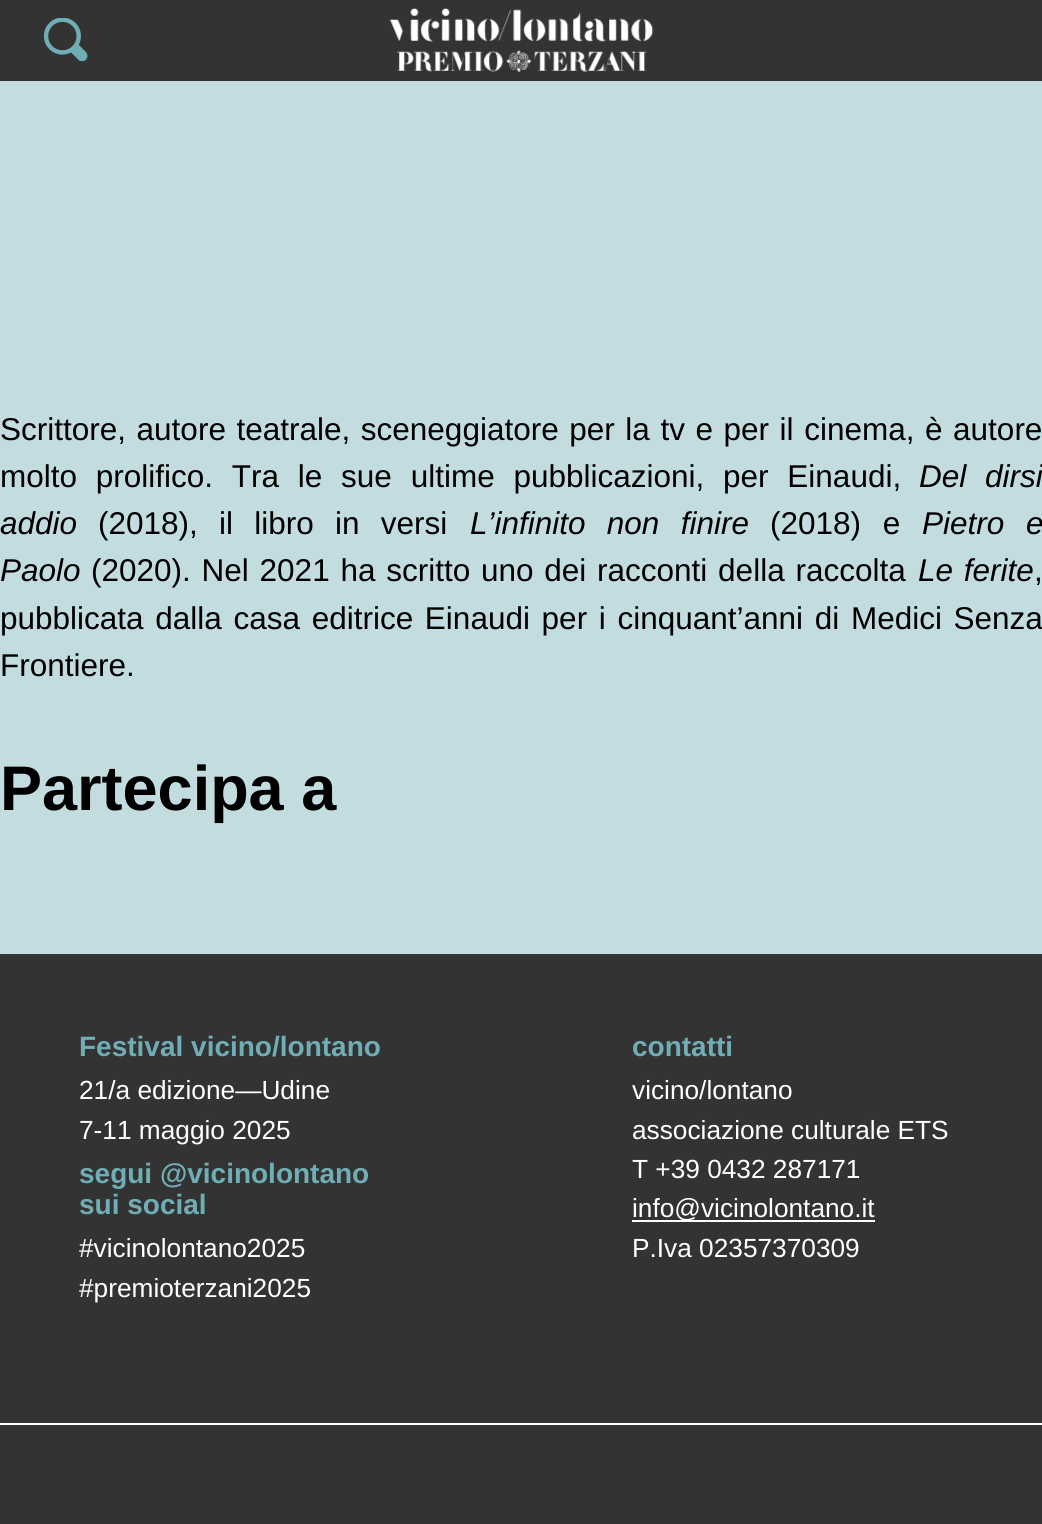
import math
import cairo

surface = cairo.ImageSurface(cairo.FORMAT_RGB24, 1042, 1524)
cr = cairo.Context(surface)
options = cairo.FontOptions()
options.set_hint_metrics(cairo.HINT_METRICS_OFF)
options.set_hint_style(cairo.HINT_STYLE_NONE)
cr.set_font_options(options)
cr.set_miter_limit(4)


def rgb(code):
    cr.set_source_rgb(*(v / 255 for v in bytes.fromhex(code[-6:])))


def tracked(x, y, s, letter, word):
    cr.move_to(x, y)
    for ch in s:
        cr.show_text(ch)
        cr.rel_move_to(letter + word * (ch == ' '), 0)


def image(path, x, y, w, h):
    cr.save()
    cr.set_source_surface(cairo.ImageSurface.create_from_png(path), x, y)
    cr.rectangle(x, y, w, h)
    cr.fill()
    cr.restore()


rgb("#c3dce0")
cr.paint()
rgb("#333333")
cr.rectangle(0, 0, 1042, 81)
cr.fill()
image("img/1.png", 44, 18, 44, 43)
image("img/2.png", 390, 8, 264, 64)
for x, y, w, h, color in [
    (0, 954, 1042, 469, "#333333"),
    (632, 1220, 243, 2, "#ffffff"),
    (0, 1425, 1042, 99, "#333333"),
    (0, 1423, 1042, 2, "#ffffff"),
]:
    rgb(color)
    cr.rectangle(x, y, w, h)
    cr.fill()
cr.select_font_face("Liberation Sans")
cr.set_font_size(31.5)
rgb("#000000")
tracked(0, 440, "Scrittore, autore teatrale, sceneggiatore per la tv e per il cinema, è autore", 0, 1.8)
tracked(0, 487, "molto prolifico. Tra le sue ultime pubblicazioni, per Einaudi,", 0, 10)
cr.select_font_face("Liberation Sans", cairo.FONT_SLANT_ITALIC)
tracked(919, 487, "Del dirsi", 0, 10)
cr.move_to(0, 534)
cr.show_text("addio")
cr.select_font_face("Liberation Sans")
tracked(98, 534, "(2018), il libro in versi", 0, 12.5)
cr.select_font_face("Liberation Sans", cairo.FONT_SLANT_ITALIC)
tracked(470, 534, "L’infinito non finire", 0, 12.5)
cr.select_font_face("Liberation Sans")
tracked(770, 534, "(2018) e", 0, 13)
cr.select_font_face("Liberation Sans", cairo.FONT_SLANT_ITALIC)
tracked(922, 534, "Pietro e", 0, 13)
cr.move_to(0, 581)
cr.show_text("Paolo")
cr.select_font_face("Liberation Sans")
tracked(91, 581, "(2020). Nel 2021 ha scritto uno dei racconti della raccolta", 0, 2)
cr.select_font_face("Liberation Sans", cairo.FONT_SLANT_ITALIC)
tracked(918, 581, "Le ferite", 0, 2)
cr.select_font_face("Liberation Sans")
cr.move_to(1034, 581)
cr.show_text(",")
tracked(0, 629, "pubblicata dalla casa editrice Einaudi per i cinquant’anni di Medici Senza", 0, 2.9)
cr.move_to(0, 676)
cr.show_text("Frontiere.")
cr.select_font_face("Liberation Sans", cairo.FONT_SLANT_NORMAL, cairo.FONT_WEIGHT_BOLD)
cr.set_font_size(63)
cr.move_to(0, 810)
cr.show_text("Partecipa a")
cr.set_font_size(28)
rgb("#6faeb4")
cr.move_to(79, 1056)
cr.show_text("Festival vicino/lontano")
cr.select_font_face("Liberation Sans")
cr.set_font_size(26.25)
rgb("#ffffff")
cr.move_to(79, 1099)
cr.show_text("21/a edizione—Udine")
cr.move_to(79, 1139)
cr.show_text("7-11 maggio 2025")
cr.select_font_face("Liberation Sans", cairo.FONT_SLANT_NORMAL, cairo.FONT_WEIGHT_BOLD)
cr.set_font_size(28)
rgb("#6faeb4")
cr.move_to(79, 1183)
cr.show_text("segui @vicinolontano")
cr.move_to(79, 1214)
cr.show_text("sui social")
cr.select_font_face("Liberation Sans")
cr.set_font_size(26.25)
rgb("#ffffff")
cr.move_to(79, 1257)
cr.show_text("#vicinolontano2025")
cr.move_to(79, 1297)
cr.show_text("#premioterzani2025")
cr.select_font_face("Liberation Sans", cairo.FONT_SLANT_NORMAL, cairo.FONT_WEIGHT_BOLD)
cr.set_font_size(28)
rgb("#6faeb4")
cr.move_to(632, 1056)
cr.show_text("contatti")
cr.select_font_face("Liberation Sans")
cr.set_font_size(26.25)
rgb("#ffffff")
for x, y, s in [
    (632, 1099, "vicino/lontano"),
    (632, 1139, "associazione culturale ETS"),
    (632, 1178, "T +39 0432 287171"),
    (632, 1217, "info@vicinolontano.it"),
    (632, 1257, "P.Iva 02357370309"),
]:
    cr.move_to(x, y)
    cr.show_text(s)
surface.write_to_png("page.png")
